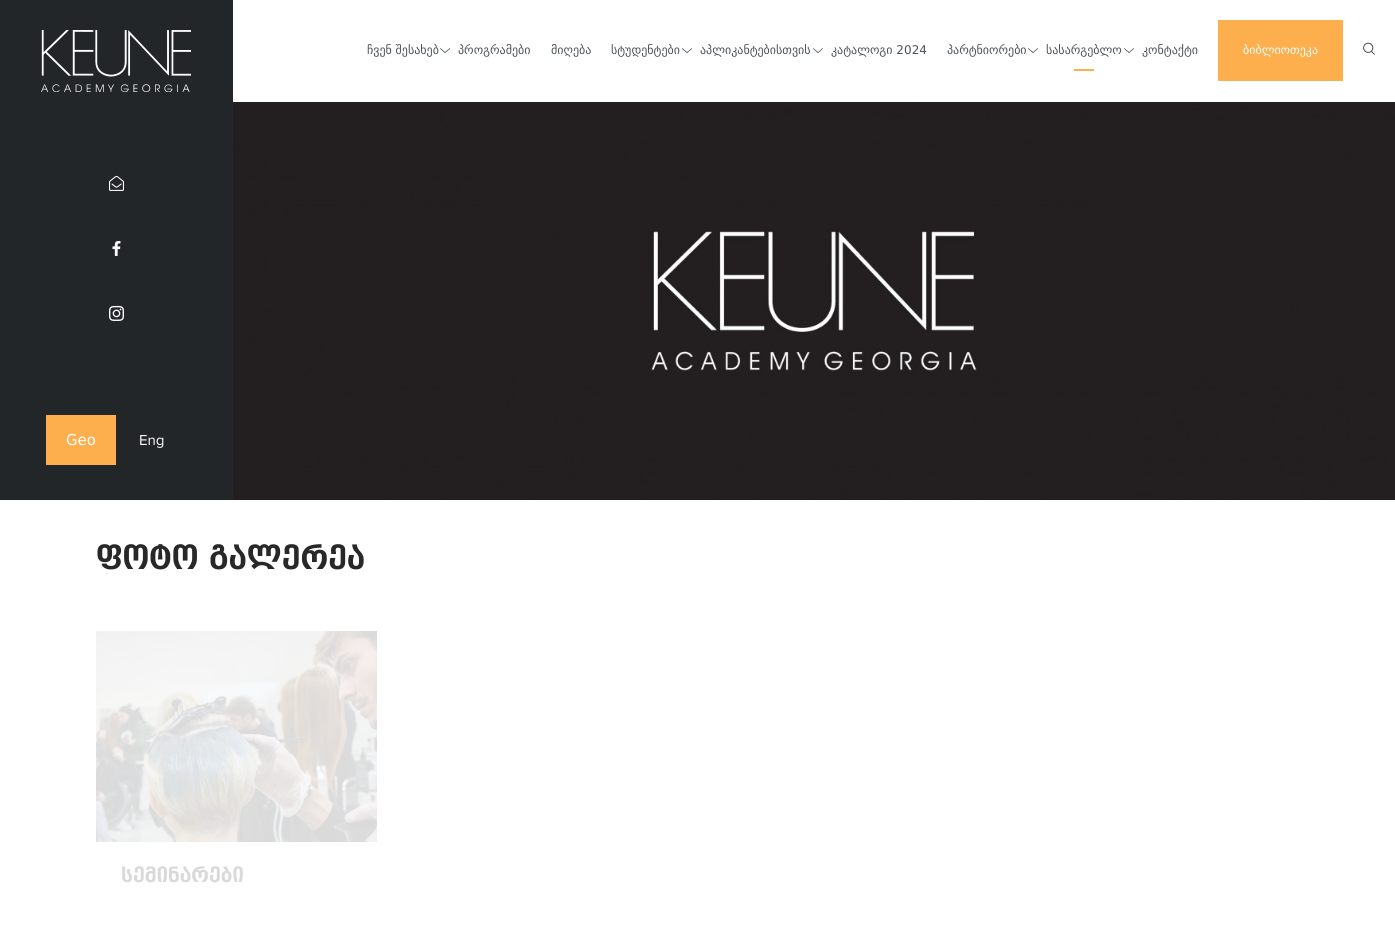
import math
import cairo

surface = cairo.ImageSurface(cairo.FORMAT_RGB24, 1395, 929)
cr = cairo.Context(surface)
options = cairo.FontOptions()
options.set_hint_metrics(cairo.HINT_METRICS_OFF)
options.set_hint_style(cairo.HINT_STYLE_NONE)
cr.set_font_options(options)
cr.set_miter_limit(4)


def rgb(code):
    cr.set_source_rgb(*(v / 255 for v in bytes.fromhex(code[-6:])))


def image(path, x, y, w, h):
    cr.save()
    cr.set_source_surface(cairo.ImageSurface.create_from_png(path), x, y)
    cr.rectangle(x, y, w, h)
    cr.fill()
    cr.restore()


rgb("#ffffff")
cr.paint()
image("img/1.png", 440, 48, 10, 5)
image("img/1.png", 682, 48, 10, 5)
image("img/1.png", 813, 48, 10, 5)
image("img/1.png", 1028, 48, 10, 5)
rgb("#fdaf4e")
cr.rectangle(1074, 69, 20, 2)
cr.fill()
image("img/1.png", 1124, 48, 10, 5)
cr.rectangle(1218, 20, 125, 61)
cr.fill()
image("img/2.png", 1363, 42, 12, 13)
image("img/3.png", 233, 102, 1162, 398)
rgb("#222629")
cr.rectangle(0, 0, 233, 500)
cr.fill()
image("img/4.png", 41, 30, 150, 62)
image("img/5.png", 109, 175, 15, 16)
image("img/6.png", 112, 240, 9, 16)
image("img/7.png", 109, 305, 15, 16)
rgb("#fdaf4e")
cr.rectangle(46, 415, 70, 50)
cr.fill()
image("img/8.png", 140, 435, 24, 13)
image("img/9.png", 96, 631, 281, 211)
cr.select_font_face("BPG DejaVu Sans")
cr.set_font_size(12)
rgb("#4b5359")
for x, y, s in [
    (367, 54, "ჩვენ შესახებ"),
    (458, 54, "პროგრამები"),
    (551, 54, "მიღება"),
    (611, 54, "სტუდენტები"),
    (700, 54, "აპლიკანტებისთვის"),
    (831, 54, "კატალოგი 2024"),
    (947, 54, "პარტნიორები"),
    (1046, 54, "სასარგებლო"),
    (1142, 54, "კონტაქტი"),
]:
    cr.move_to(x, y)
    cr.show_text(s)
rgb("#ffffff")
cr.move_to(1243, 54)
cr.show_text("ბიბლიოთეკა")
cr.set_font_size(15)
cr.move_to(66, 445)
cr.show_text("Geo")
cr.select_font_face("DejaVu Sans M", cairo.FONT_SLANT_NORMAL, cairo.FONT_WEIGHT_BOLD)
cr.set_font_size(30)
rgb("#282828")
cr.move_to(96, 569)
cr.show_text("ფოტო გალერეა")
cr.set_font_size(19)
rgb("#d9d9d9")
cr.move_to(121, 882)
cr.show_text("სემინარები")
surface.write_to_png("page.png")
